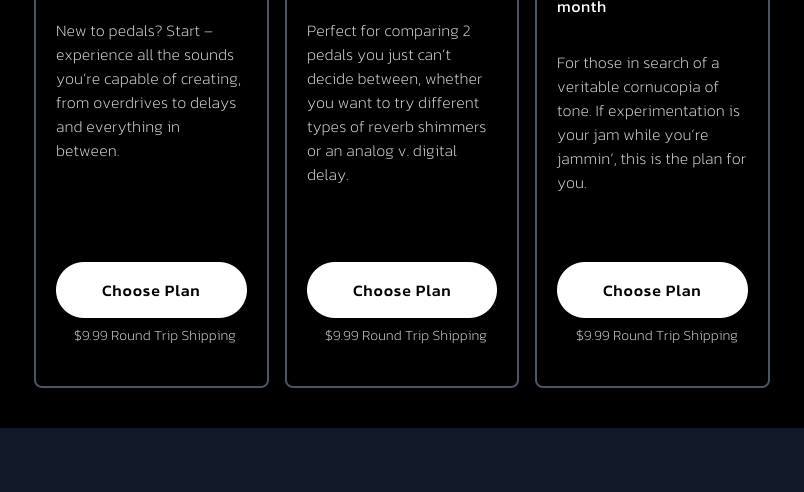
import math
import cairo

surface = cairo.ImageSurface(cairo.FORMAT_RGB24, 804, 492)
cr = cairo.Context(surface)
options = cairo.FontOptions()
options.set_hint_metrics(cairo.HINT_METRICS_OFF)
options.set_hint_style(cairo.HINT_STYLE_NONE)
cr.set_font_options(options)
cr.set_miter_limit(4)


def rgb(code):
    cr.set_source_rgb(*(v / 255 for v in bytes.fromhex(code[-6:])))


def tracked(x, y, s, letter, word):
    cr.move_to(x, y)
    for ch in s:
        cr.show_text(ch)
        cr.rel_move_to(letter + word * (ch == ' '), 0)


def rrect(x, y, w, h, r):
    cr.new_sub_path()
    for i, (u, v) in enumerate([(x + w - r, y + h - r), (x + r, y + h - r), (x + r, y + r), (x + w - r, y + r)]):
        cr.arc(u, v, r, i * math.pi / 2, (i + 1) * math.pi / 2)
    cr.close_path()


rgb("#000000")
cr.paint()
rrect(35, -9, 233, 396, 7)
rgb("#4b5563")
cr.stroke()
rgb("#ffffff")
rrect(57, 263, 189, 54, 27)
cr.fill_preserve()
cr.stroke()
rrect(286, -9, 232, 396, 7)
rgb("#4b5563")
cr.stroke()
rgb("#ffffff")
rrect(308, 263, 188, 54, 27)
cr.fill_preserve()
cr.stroke()
rrect(536, -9, 233, 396, 7)
rgb("#4b5563")
cr.stroke()
rgb("#ffffff")
rrect(558, 263, 189, 54, 27)
cr.fill_preserve()
cr.stroke()
rgb("#111827")
cr.rectangle(0, 428, 804, 64)
cr.fill()
cr.select_font_face("Kanit ExtraLight")
cr.set_font_size(16)
rgb("#d1d5db")
for x, y, s in [
    (56, 36, "New to pedals? Start –"),
    (56, 60, "experience all the sounds"),
    (56, 84, "you’re capable of creating,"),
    (56, 108, "from overdrives to delays"),
    (56, 132, "and everything in"),
    (56, 156, "between."),
]:
    cr.move_to(x, y)
    cr.show_text(s)
cr.select_font_face("Kanit Medium")
rgb("#000000")
tracked(102, 296, "Choose Plan", 0.75, 0)
cr.select_font_face("Kanit ExtraLight")
cr.set_font_size(14)
rgb("#d1d5db")
cr.move_to(74, 340)
cr.show_text("$9.99 Round Trip Shipping")
cr.set_font_size(16)
for x, y, s in [
    (307, 36, "Perfect for comparing 2"),
    (307, 60, "pedals you just can’t"),
    (307, 84, "decide between, whether"),
    (307, 108, "you want to try different"),
    (307, 132, "types of reverb shimmers"),
    (307, 156, "or an analog v. digital"),
    (307, 180, "delay."),
]:
    cr.move_to(x, y)
    cr.show_text(s)
cr.select_font_face("Kanit Medium")
rgb("#000000")
tracked(353, 296, "Choose Plan", 0.75, 0)
cr.select_font_face("Kanit ExtraLight")
cr.set_font_size(14)
rgb("#d1d5db")
cr.move_to(325, 340)
cr.show_text("$9.99 Round Trip Shipping")
cr.select_font_face("Kanit")
cr.set_font_size(16)
rgb("#ffffff")
tracked(557, 12, "month", 0.5, 0)
cr.select_font_face("Kanit ExtraLight")
rgb("#d1d5db")
for x, y, s in [
    (557, 68, "For those in search of a"),
    (557, 92, "veritable cornucopia of"),
    (557, 116, "tone. If experimentation is"),
    (557, 140, "your jam while you’re"),
    (557, 164, "jammin’, this is the plan for"),
    (557, 188, "you."),
]:
    cr.move_to(x, y)
    cr.show_text(s)
cr.select_font_face("Kanit Medium")
rgb("#000000")
tracked(603, 296, "Choose Plan", 0.75, 0)
cr.select_font_face("Kanit ExtraLight")
cr.set_font_size(14)
rgb("#d1d5db")
cr.move_to(576, 340)
cr.show_text("$9.99 Round Trip Shipping")
surface.write_to_png("page.png")
